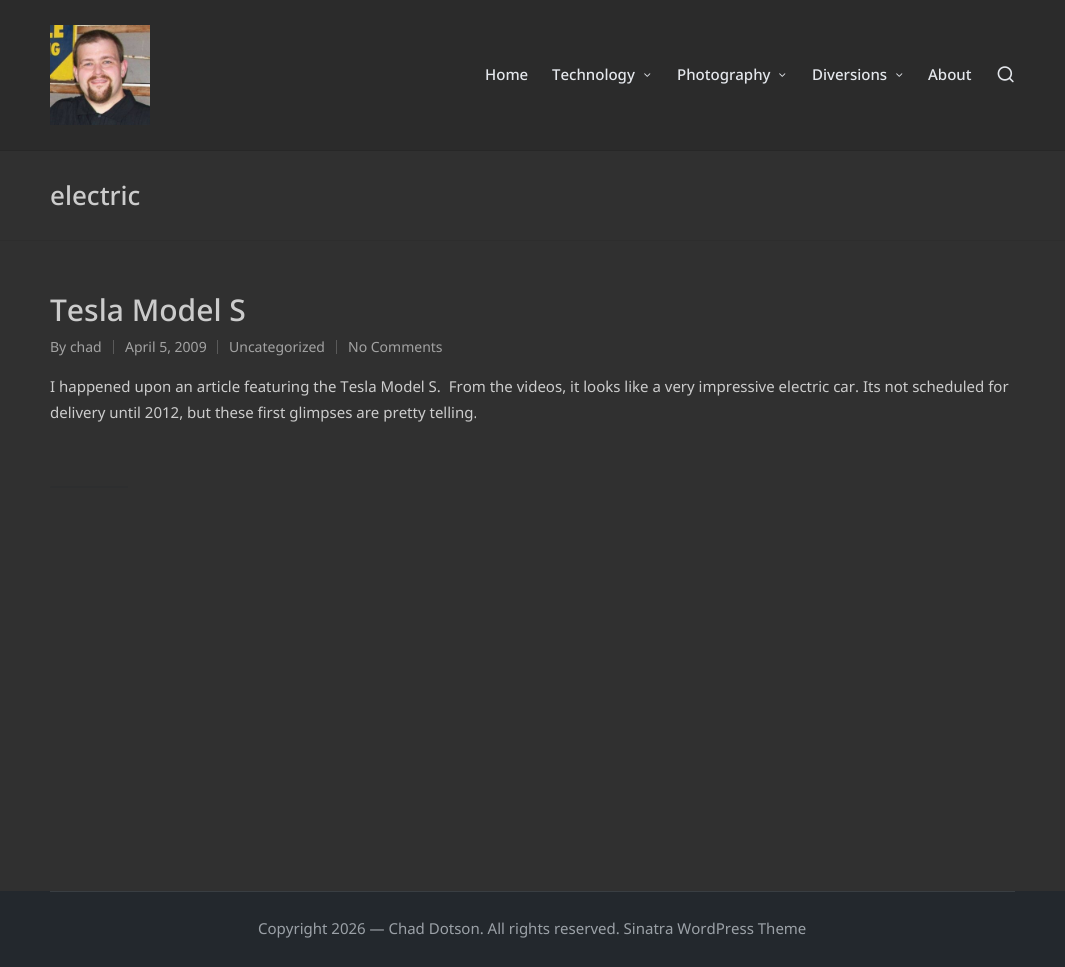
import math
import cairo

surface = cairo.ImageSurface(cairo.FORMAT_RGB24, 1065, 967)
cr = cairo.Context(surface)
options = cairo.FontOptions()
options.set_hint_metrics(cairo.HINT_METRICS_OFF)
options.set_hint_style(cairo.HINT_STYLE_NONE)
cr.set_font_options(options)
cr.set_miter_limit(4)


def rgb(code):
    cr.set_source_rgb(*(v / 255 for v in bytes.fromhex(code[-6:])))


def rrect(x, y, w, h, r):
    cr.new_sub_path()
    for i, (u, v) in enumerate([(x + w - r, y + h - r), (x + r, y + h - r), (x + r, y + r), (x + w - r, y + r)]):
        cr.arc(u, v, r, i * math.pi / 2, (i + 1) * math.pi / 2)
    cr.close_path()


def image(path, x, y, w, h):
    cr.save()
    cr.set_source_surface(cairo.ImageSurface.create_from_png(path), x, y)
    cr.rectangle(x, y, w, h)
    cr.fill()
    cr.restore()


rgb("#303030")
cr.paint()
rgb("#2b2b2b")
cr.rectangle(0, 0, 1065, 150)
cr.fill()
rgb("#272727")
cr.rectangle(0, 150, 1065, 1)
cr.fill()
image("img/1.png", 50, 25, 100, 100)
image("img/2.png", 644, 73, 7, 4)
image("img/2.png", 779, 73, 7, 4)
image("img/2.png", 896, 73, 7, 4)
image("img/3.png", 997, 66, 17, 17)
for x, y, w, h, color in [
    (0, 240, 1065, 1, "#2d2d2d"),
    (113, 340, 1, 14, "#5a5a5a"),
    (217, 340, 1, 14, "#5a5a5a"),
    (336, 340, 1, 14, "#5a5a5a"),
]:
    rgb(color)
    cr.rectangle(x, y, w, h)
    cr.fill()
rgb("#2d2e2f")
rrect(50, 486, 78, 2, 1)
cr.fill()
rgb("#23282d")
cr.rectangle(0, 891, 1065, 76)
cr.fill()
rgb("#393e42")
cr.rectangle(50, 891, 965, 1)
cr.fill()
cr.select_font_face("Noto Sans Medium")
cr.set_font_size(15)
rgb("#e4e7ec")
for x, y, s in [
    (485, 80, "Home"),
    (552, 80, "Technology"),
    (677, 80, "Photography"),
    (812, 80, "Diversions"),
    (928, 80, "About"),
]:
    cr.move_to(x, y)
    cr.show_text(s)
cr.set_font_size(26)
rgb("#cccccc")
cr.move_to(50, 205)
cr.show_text("electric")
cr.set_font_size(30)
cr.move_to(50, 321)
cr.show_text("Tesla Model S")
cr.select_font_face("Noto Sans")
cr.set_font_size(14)
rgb("#a2a2a2")
for x, y, s in [
    (50, 352, "By chad"),
    (125, 352, "April 5, 2009"),
    (229, 352, "Uncategorized"),
    (348, 352, "No Comments"),
]:
    cr.move_to(x, y)
    cr.show_text(s)
cr.set_font_size(15)
rgb("#cccccc")
cr.move_to(50, 392)
cr.show_text("I happened upon an article featuring the Tesla Model S.  From the videos, it looks like a very impressive electric car. Its not scheduled for")
cr.move_to(50, 418)
cr.show_text("delivery until 2012, but these first glimpses are pretty telling.")
rgb("#9ba1a7")
cr.move_to(258, 934)
cr.show_text("Copyright 2026 — Chad Dotson. All rights reserved. Sinatra WordPress Theme")
surface.write_to_png("page.png")
